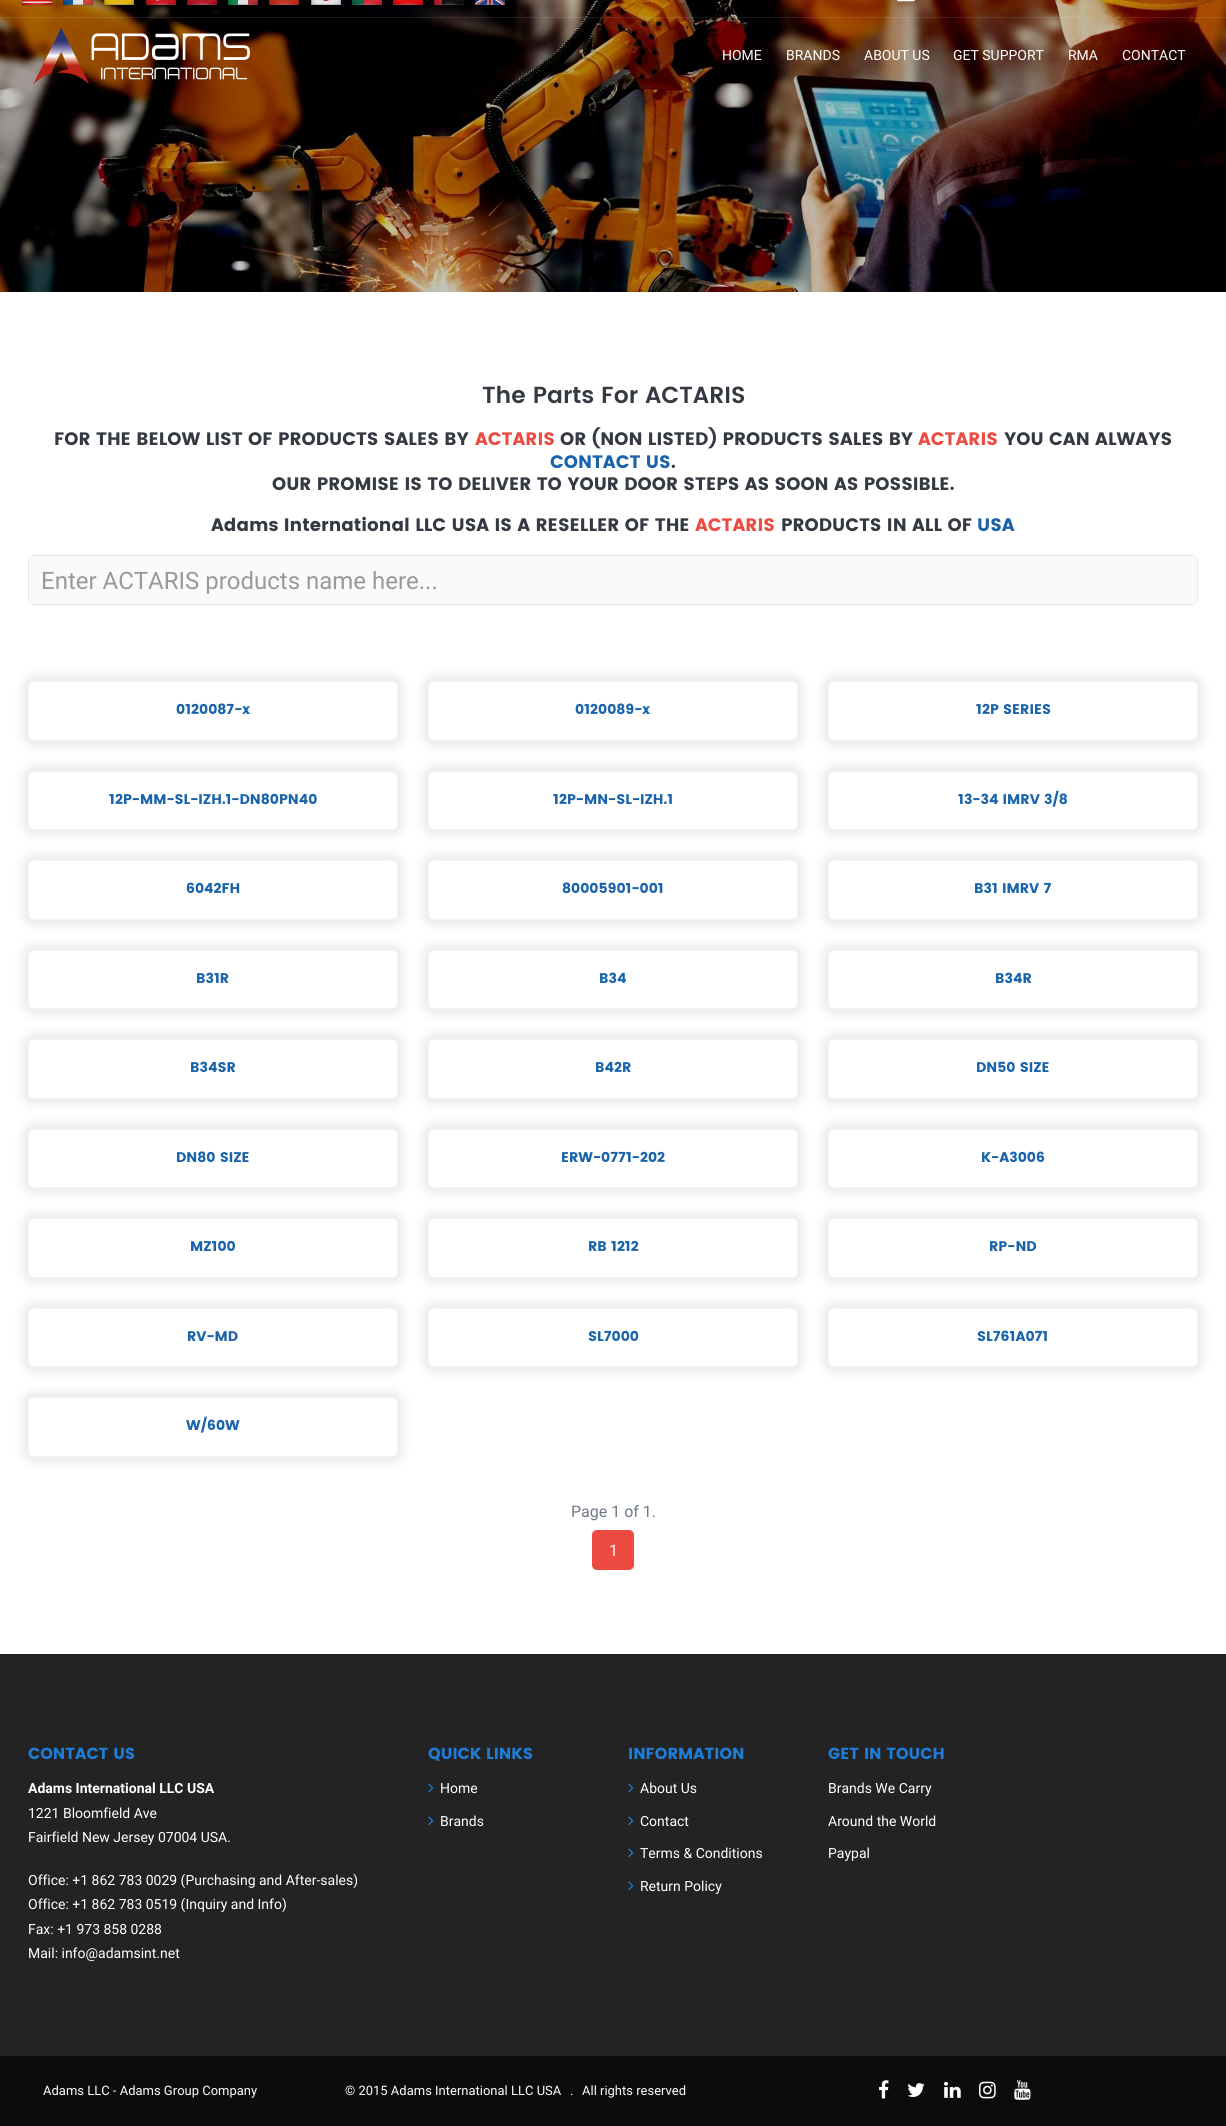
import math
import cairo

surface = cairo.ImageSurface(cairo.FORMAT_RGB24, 1226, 2126)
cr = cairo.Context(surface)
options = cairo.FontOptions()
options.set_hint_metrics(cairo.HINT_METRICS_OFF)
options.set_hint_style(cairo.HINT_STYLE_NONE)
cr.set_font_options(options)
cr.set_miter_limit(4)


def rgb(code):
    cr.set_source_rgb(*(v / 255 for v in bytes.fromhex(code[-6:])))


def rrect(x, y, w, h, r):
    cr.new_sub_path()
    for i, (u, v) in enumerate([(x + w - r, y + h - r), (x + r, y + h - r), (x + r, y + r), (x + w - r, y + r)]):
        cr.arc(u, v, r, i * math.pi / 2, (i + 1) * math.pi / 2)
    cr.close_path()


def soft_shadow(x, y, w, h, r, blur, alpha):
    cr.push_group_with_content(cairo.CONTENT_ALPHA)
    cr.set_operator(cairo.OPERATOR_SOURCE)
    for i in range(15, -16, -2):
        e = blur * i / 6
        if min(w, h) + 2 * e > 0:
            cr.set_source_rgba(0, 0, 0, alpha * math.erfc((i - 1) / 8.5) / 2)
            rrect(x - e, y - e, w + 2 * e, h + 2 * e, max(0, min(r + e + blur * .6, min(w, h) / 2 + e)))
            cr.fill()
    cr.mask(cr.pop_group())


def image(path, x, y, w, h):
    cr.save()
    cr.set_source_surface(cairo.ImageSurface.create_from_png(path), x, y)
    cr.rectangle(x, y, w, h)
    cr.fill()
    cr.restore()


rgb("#ffffff")
cr.paint()
image("img/1.png", 0, 0, 1226, 292)
cr.set_source_rgba(1, 1, 1, 0.1)
cr.rectangle(0, 17, 1226, 1)
cr.fill()
image("img/2.png", 21, 0, 32, 6)
image("img/3.png", 62, 0, 32, 6)
image("img/4.png", 104, 0, 30, 6)
image("img/5.png", 146, 0, 30, 5)
image("img/6.png", 187, 0, 30, 5)
image("img/7.png", 228, 0, 30, 5)
image("img/8.png", 269, 0, 30, 5)
image("img/9.png", 311, 0, 30, 5)
image("img/10.png", 352, 0, 30, 5)
image("img/11.png", 393, 0, 30, 5)
image("img/12.png", 434, 0, 30, 5)
image("img/13.png", 475, 0, 30, 5)
image("img/14.png", 897, 0, 18, 2)
image("img/15.png", 33, 28, 217, 56)
rrect(28.5, 555.5, 1169, 49, 5.5)
rgb("#e9e9e9")
cr.set_line_width(1)
cr.stroke()
rgb("#fafafa")
rrect(29, 556, 1168, 48, 4)
cr.fill()
rgb("#979090")
soft_shadow(23, 676, 380, 70, 11, 5, 0.2)
rgb("#ffffff")
rrect(28.5, 681.5, 369, 59, 5.5)
cr.fill_preserve()
rgb("#f5f5f5")
cr.stroke()
rgb("#979090")
soft_shadow(423, 676, 380, 70, 11, 5, 0.2)
rgb("#ffffff")
rrect(428.5, 681.5, 369, 59, 5.5)
cr.fill_preserve()
rgb("#f5f5f5")
cr.stroke()
rgb("#979090")
soft_shadow(823, 676, 380, 70, 11, 5, 0.2)
rgb("#ffffff")
rrect(828.5, 681.5, 369, 59, 5.5)
cr.fill_preserve()
rgb("#f5f5f5")
cr.stroke()
rgb("#979090")
soft_shadow(23, 766, 380, 69, 11, 5, 0.2)
rgb("#ffffff")
rrect(28.5, 771.5, 369, 58, 5.5)
cr.fill_preserve()
rgb("#f5f5f5")
cr.stroke()
rgb("#979090")
soft_shadow(423, 766, 380, 69, 11, 5, 0.2)
rgb("#ffffff")
rrect(428.5, 771.5, 369, 58, 5.5)
cr.fill_preserve()
rgb("#f5f5f5")
cr.stroke()
rgb("#979090")
soft_shadow(823, 766, 380, 69, 11, 5, 0.2)
rgb("#ffffff")
rrect(828.5, 771.5, 369, 58, 5.5)
cr.fill_preserve()
rgb("#f5f5f5")
cr.stroke()
rgb("#979090")
soft_shadow(23, 855, 380, 70, 11, 5, 0.2)
rgb("#ffffff")
rrect(28.5, 860.5, 369, 59, 5.5)
cr.fill_preserve()
rgb("#f5f5f5")
cr.stroke()
rgb("#979090")
soft_shadow(423, 855, 380, 70, 11, 5, 0.2)
rgb("#ffffff")
rrect(428.5, 860.5, 369, 59, 5.5)
cr.fill_preserve()
rgb("#f5f5f5")
cr.stroke()
rgb("#979090")
soft_shadow(823, 855, 380, 70, 11, 5, 0.2)
rgb("#ffffff")
rrect(828.5, 860.5, 369, 59, 5.5)
cr.fill_preserve()
rgb("#f5f5f5")
cr.stroke()
rgb("#979090")
soft_shadow(23, 945, 380, 69, 11, 5, 0.2)
rgb("#ffffff")
rrect(28.5, 950.5, 369, 58, 5.5)
cr.fill_preserve()
rgb("#f5f5f5")
cr.stroke()
rgb("#979090")
soft_shadow(423, 945, 380, 69, 11, 5, 0.2)
rgb("#ffffff")
rrect(428.5, 950.5, 369, 58, 5.5)
cr.fill_preserve()
rgb("#f5f5f5")
cr.stroke()
rgb("#979090")
soft_shadow(823, 945, 380, 69, 11, 5, 0.2)
rgb("#ffffff")
rrect(828.5, 950.5, 369, 58, 5.5)
cr.fill_preserve()
rgb("#f5f5f5")
cr.stroke()
rgb("#979090")
soft_shadow(23, 1034, 380, 70, 11, 5, 0.2)
rgb("#ffffff")
rrect(28.5, 1039.5, 369, 59, 5.5)
cr.fill_preserve()
rgb("#f5f5f5")
cr.stroke()
rgb("#979090")
soft_shadow(423, 1034, 380, 70, 11, 5, 0.2)
rgb("#ffffff")
rrect(428.5, 1039.5, 369, 59, 5.5)
cr.fill_preserve()
rgb("#f5f5f5")
cr.stroke()
rgb("#979090")
soft_shadow(823, 1034, 380, 70, 11, 5, 0.2)
rgb("#ffffff")
rrect(828.5, 1039.5, 369, 59, 5.5)
cr.fill_preserve()
rgb("#f5f5f5")
cr.stroke()
rgb("#979090")
soft_shadow(23, 1124, 380, 69, 11, 5, 0.2)
rgb("#ffffff")
rrect(28.5, 1129.5, 369, 58, 5.5)
cr.fill_preserve()
rgb("#f5f5f5")
cr.stroke()
rgb("#979090")
soft_shadow(423, 1124, 380, 69, 11, 5, 0.2)
rgb("#ffffff")
rrect(428.5, 1129.5, 369, 58, 5.5)
cr.fill_preserve()
rgb("#f5f5f5")
cr.stroke()
rgb("#979090")
soft_shadow(823, 1124, 380, 69, 11, 5, 0.2)
rgb("#ffffff")
rrect(828.5, 1129.5, 369, 58, 5.5)
cr.fill_preserve()
rgb("#f5f5f5")
cr.stroke()
rgb("#979090")
soft_shadow(23, 1213, 380, 70, 11, 5, 0.2)
rgb("#ffffff")
rrect(28.5, 1218.5, 369, 59, 5.5)
cr.fill_preserve()
rgb("#f5f5f5")
cr.stroke()
rgb("#979090")
soft_shadow(423, 1213, 380, 70, 11, 5, 0.2)
rgb("#ffffff")
rrect(428.5, 1218.5, 369, 59, 5.5)
cr.fill_preserve()
rgb("#f5f5f5")
cr.stroke()
rgb("#979090")
soft_shadow(823, 1213, 380, 70, 11, 5, 0.2)
rgb("#ffffff")
rrect(828.5, 1218.5, 369, 59, 5.5)
cr.fill_preserve()
rgb("#f5f5f5")
cr.stroke()
rgb("#979090")
soft_shadow(23, 1303, 380, 69, 11, 5, 0.2)
rgb("#ffffff")
rrect(28.5, 1308.5, 369, 58, 5.5)
cr.fill_preserve()
rgb("#f5f5f5")
cr.stroke()
rgb("#979090")
soft_shadow(423, 1303, 380, 69, 11, 5, 0.2)
rgb("#ffffff")
rrect(428.5, 1308.5, 369, 58, 5.5)
cr.fill_preserve()
rgb("#f5f5f5")
cr.stroke()
rgb("#979090")
soft_shadow(823, 1303, 380, 69, 11, 5, 0.2)
rgb("#ffffff")
rrect(828.5, 1308.5, 369, 58, 5.5)
cr.fill_preserve()
rgb("#f5f5f5")
cr.stroke()
rgb("#979090")
soft_shadow(23, 1392, 380, 70, 11, 5, 0.2)
rgb("#ffffff")
rrect(28.5, 1397.5, 369, 59, 5.5)
cr.fill_preserve()
rgb("#f5f5f5")
cr.stroke()
rgb("#ed4b41")
rrect(592.5, 1530.5, 41, 39, 4.5)
cr.fill_preserve()
cr.stroke()
rgb("#232323")
cr.rectangle(0, 1654, 1226, 402)
cr.fill()
image("img/16.png", 428, 1783, 6, 10)
image("img/16.png", 428, 1816, 6, 10)
image("img/16.png", 628, 1783, 6, 10)
image("img/16.png", 628, 1816, 6, 10)
image("img/16.png", 628, 1848, 6, 10)
image("img/16.png", 628, 1881, 6, 10)
rgb("#0c0c0c")
cr.rectangle(0, 2056, 1226, 70)
cr.fill()
image("img/17.png", 879, 2080, 10, 19)
image("img/18.png", 907, 2083, 18, 14)
image("img/19.png", 944, 2081, 17, 17)
image("img/20.png", 979, 2081, 17, 18)
image("img/21.png", 1014, 2080, 17, 20)
cr.select_font_face("Roboto")
cr.set_font_size(14)
rgb("#ffffff")
for x, y, s in [
    (722, 60, "HOME"),
    (786, 60, "BRANDS"),
    (864, 60, "ABOUT US"),
    (953, 60, "GET SUPPORT"),
    (1068, 60, "RMA"),
    (1122, 60, "CONTACT"),
]:
    cr.move_to(x, y)
    cr.show_text(s)
cr.select_font_face("Poppins SemiBold")
cr.set_font_size(23.25)
rgb("#353a42")
cr.move_to(482, 403)
cr.show_text("The Parts For ACTARIS")
cr.select_font_face("Poppins", cairo.FONT_SLANT_NORMAL, cairo.FONT_WEIGHT_BOLD)
cr.set_font_size(18)
cr.move_to(54, 445)
cr.show_text("FOR THE BELOW LIST OF PRODUCTS SALES BY")
rgb("#ed4b41")
cr.move_to(475, 445)
cr.show_text("ACTARIS")
rgb("#353a42")
cr.move_to(560, 445)
cr.show_text("OR (NON LISTED) PRODUCTS SALES BY")
rgb("#ed4b41")
cr.move_to(918, 445)
cr.show_text("ACTARIS")
rgb("#353a42")
cr.move_to(1004, 445)
cr.show_text("YOU CAN ALWAYS")
rgb("#1863ab")
cr.move_to(550, 468)
cr.show_text("CONTACT US")
rgb("#353a42")
for x, y, s in [
    (671, 468, "."),
    (272, 490, "OUR PROMISE IS TO DELIVER TO YOUR DOOR STEPS AS SOON AS POSSIBLE."),
    (211, 531, "Adams International LLC USA IS A RESELLER OF THE"),
]:
    cr.move_to(x, y)
    cr.show_text(s)
rgb("#ed4b41")
cr.move_to(695, 531)
cr.show_text("ACTARIS")
rgb("#353a42")
cr.move_to(781, 531)
cr.show_text("PRODUCTS IN ALL OF")
rgb("#1863ab")
cr.move_to(977, 531)
cr.show_text("USA")
cr.select_font_face("Roboto")
cr.set_font_size(24)
rgb("#999999")
cr.move_to(41, 589)
cr.show_text("Enter ACTARIS products name here...")
cr.select_font_face("Poppins", cairo.FONT_SLANT_NORMAL, cairo.FONT_WEIGHT_BOLD)
cr.set_font_size(14)
rgb("#1863ab")
for x, y, s in [
    (176, 714, "0120087-x"),
    (575, 714, "0120089-x"),
    (976, 714, "12P SERIES"),
    (109, 804, "12P-MM-SL-IZH.1-DN80PN40"),
    (553, 804, "12P-MN-SL-IZH.1"),
    (958, 804, "13-34 IMRV 3/8"),
    (186, 893, "6042FH"),
    (562, 893, "80005901-001"),
    (974, 893, "B31 IMRV 7"),
    (196, 983, "B31R"),
    (599, 983, "B34"),
    (995, 983, "B34R"),
    (190, 1072, "B34SR"),
    (595, 1072, "B42R"),
    (976, 1072, "DN50 SIZE"),
    (176, 1162, "DN80 SIZE"),
    (561, 1162, "ERW-0771-202"),
    (981, 1162, "K-A3006"),
    (190, 1251, "MZ100"),
    (588, 1251, "RB 1212"),
    (989, 1251, "RP-ND"),
    (187, 1341, "RV-MD"),
    (588, 1341, "SL7000"),
    (977, 1341, "SL761A071"),
    (186, 1430, "W/60W"),
]:
    cr.move_to(x, y)
    cr.show_text(s)
cr.select_font_face("Roboto")
cr.set_font_size(16)
rgb("#6e7889")
cr.move_to(571, 1517)
cr.show_text("Page 1 of 1.")
rgb("#ffffff")
cr.move_to(609, 1556)
cr.show_text("1")
cr.select_font_face("Poppins", cairo.FONT_SLANT_NORMAL, cairo.FONT_WEIGHT_BOLD)
rgb("#1e7dd8")
cr.move_to(28, 1759)
cr.show_text("CONTACT US")
cr.select_font_face("Roboto", cairo.FONT_SLANT_NORMAL, cairo.FONT_WEIGHT_BOLD)
cr.set_font_size(14)
rgb("#ffffff")
cr.move_to(28, 1793)
cr.show_text("Adams International LLC USA")
cr.select_font_face("Roboto")
for x, y, s in [
    (28, 1818, "1221 Bloomfield Ave"),
    (28, 1842, "Fairfield New Jersey 07004 USA."),
    (28, 1885, "Office: +1 862 783 0029 (Purchasing and After-sales)"),
    (28, 1909, "Office: +1 862 783 0519 (Inquiry and Info)"),
    (28, 1934, "Fax: +1 973 858 0288"),
    (28, 1958, "Mail: info@adamsint.net"),
]:
    cr.move_to(x, y)
    cr.show_text(s)
cr.select_font_face("Poppins", cairo.FONT_SLANT_NORMAL, cairo.FONT_WEIGHT_BOLD)
cr.set_font_size(16)
rgb("#1e7dd8")
cr.move_to(428, 1759)
cr.show_text("QUICK LINKS")
cr.select_font_face("Roboto")
cr.set_font_size(14)
rgb("#ffffff")
cr.move_to(440, 1793)
cr.show_text("Home")
cr.move_to(440, 1826)
cr.show_text("Brands")
cr.select_font_face("Poppins", cairo.FONT_SLANT_NORMAL, cairo.FONT_WEIGHT_BOLD)
cr.set_font_size(16)
rgb("#1e7dd8")
cr.move_to(628, 1759)
cr.show_text("INFORMATION")
cr.select_font_face("Roboto")
cr.set_font_size(14)
rgb("#ffffff")
for x, y, s in [
    (640, 1793, "About Us"),
    (640, 1826, "Contact"),
    (640, 1858, "Terms & Conditions"),
    (640, 1891, "Return Policy"),
]:
    cr.move_to(x, y)
    cr.show_text(s)
cr.select_font_face("Poppins", cairo.FONT_SLANT_NORMAL, cairo.FONT_WEIGHT_BOLD)
cr.set_font_size(16)
rgb("#1e7dd8")
cr.move_to(828, 1759)
cr.show_text("GET IN TOUCH")
cr.select_font_face("Roboto")
cr.set_font_size(14)
rgb("#ffffff")
for x, y, s in [
    (828, 1793, "Brands We Carry"),
    (828, 1826, "Around the World"),
    (828, 1858, "Paypal"),
]:
    cr.move_to(x, y)
    cr.show_text(s)
cr.set_font_size(13)
for x, y, s in [
    (43, 2095, "Adams LLC - Adams Group Company"),
    (345, 2095, "© 2015 Adams International LLC USA"),
    (570, 2095, "."),
    (582, 2095, "All rights reserved"),
]:
    cr.move_to(x, y)
    cr.show_text(s)
surface.write_to_png("page.png")
